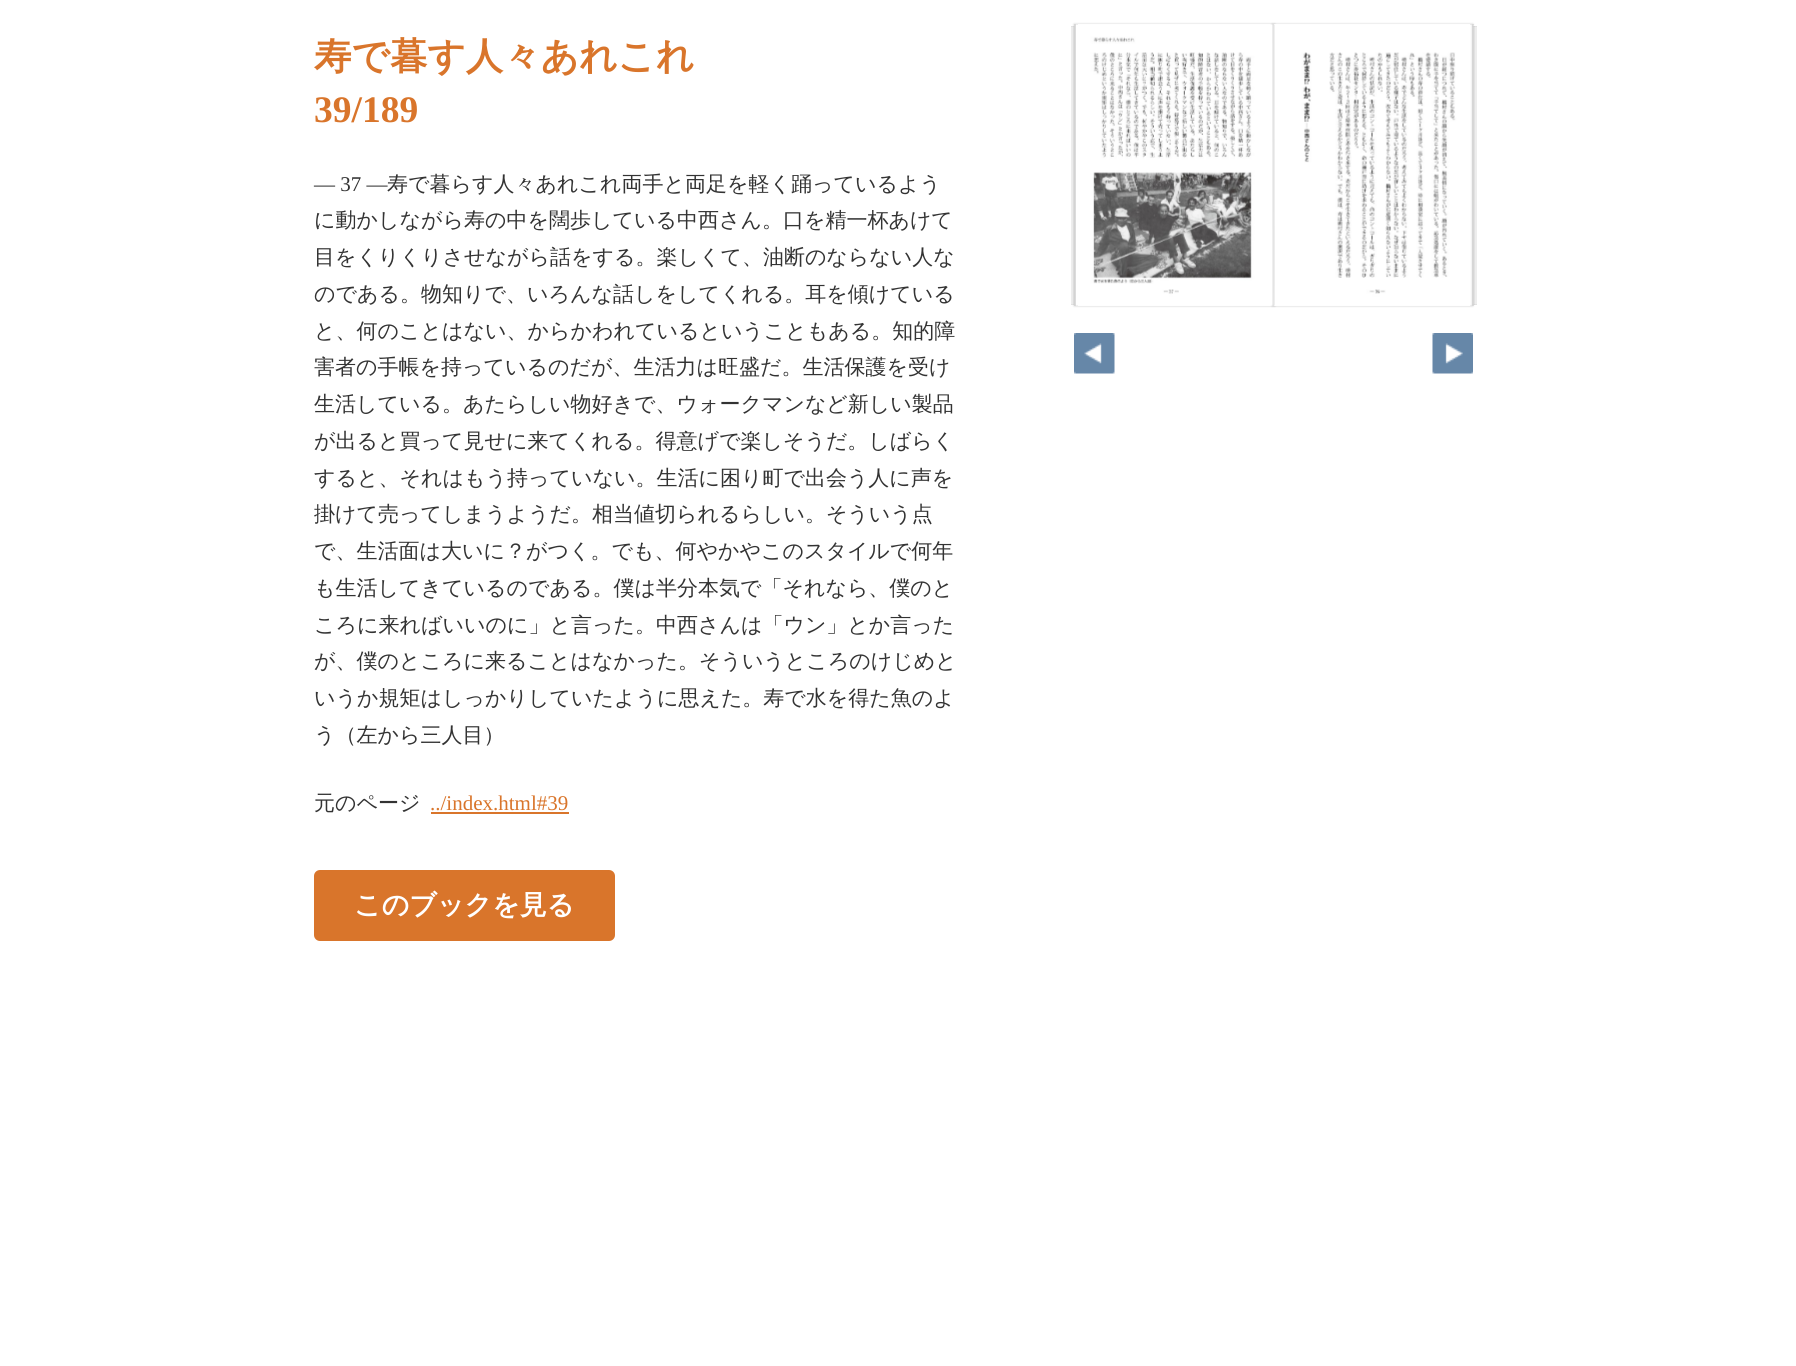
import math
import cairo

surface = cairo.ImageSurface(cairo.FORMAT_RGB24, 1796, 1366)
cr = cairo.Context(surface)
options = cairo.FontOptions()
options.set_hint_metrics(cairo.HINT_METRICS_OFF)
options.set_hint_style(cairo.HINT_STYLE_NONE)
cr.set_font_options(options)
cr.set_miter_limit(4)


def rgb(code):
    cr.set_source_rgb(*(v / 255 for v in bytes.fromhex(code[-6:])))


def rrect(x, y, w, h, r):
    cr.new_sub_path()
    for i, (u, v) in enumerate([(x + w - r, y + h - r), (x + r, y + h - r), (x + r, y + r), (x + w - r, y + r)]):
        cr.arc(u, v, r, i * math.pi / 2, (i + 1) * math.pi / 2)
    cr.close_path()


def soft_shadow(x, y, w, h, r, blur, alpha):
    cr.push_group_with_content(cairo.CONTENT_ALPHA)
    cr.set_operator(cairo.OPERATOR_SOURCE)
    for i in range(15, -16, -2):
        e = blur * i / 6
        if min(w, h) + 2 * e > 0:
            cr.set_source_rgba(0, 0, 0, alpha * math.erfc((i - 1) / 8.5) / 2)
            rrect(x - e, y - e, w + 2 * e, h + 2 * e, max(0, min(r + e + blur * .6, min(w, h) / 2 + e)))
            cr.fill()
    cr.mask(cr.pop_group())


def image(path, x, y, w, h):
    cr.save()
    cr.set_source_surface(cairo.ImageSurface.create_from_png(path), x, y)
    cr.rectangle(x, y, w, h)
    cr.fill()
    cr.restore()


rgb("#ffffff")
cr.paint()
rgb("#d9752b")
cr.rectangle(431, 812, 138, 2)
cr.fill()
rrect(314, 870, 301, 71, 6)
cr.fill()
rgb("#000000")
soft_shadow(1074, 24, 201, 282, 0, 1, 0.2)
rgb("#fdfdfd")
cr.rectangle(1076, 24, 198, 282)
cr.fill()
cr.rectangle(1071.2, 26.2, 1.6, 278.6)
rgb("#d2d2d2")
cr.set_line_width(0.4)
cr.stroke()
cr.rectangle(1074.2, 24.2, 1.6, 281.6)
cr.stroke()
cr.rectangle(1076.2, 24.2, 1.6, 281.6)
cr.stroke()
cr.rectangle(1074.2, 26.2, 1.6, 278.6)
cr.stroke()
cr.rectangle(1073.2, 26.2, 1.6, 278.6)
cr.stroke()
cr.rectangle(1073.2, 26.2, 1.6, 278.6)
cr.stroke()
rgb("#000000")
soft_shadow(1272, 24, 201, 282, 0, 1, 0.2)
rgb("#fdfdfd")
cr.rectangle(1274, 24, 198, 282)
cr.fill()
cr.rectangle(1470.2, 24.2, 1.6, 281.6)
rgb("#d2d2d2")
cr.stroke()
cr.rectangle(1472.2, 24.2, 1.6, 281.6)
cr.stroke()
cr.rectangle(1472.2, 26.2, 1.6, 278.6)
cr.stroke()
cr.rectangle(1473.2, 26.2, 1.6, 278.6)
cr.stroke()
cr.rectangle(1473.2, 26.2, 1.6, 278.6)
cr.stroke()
cr.rectangle(1475.2, 26.2, 1.6, 278.6)
cr.stroke()
image("img/3.png", 1273, 24, 199, 282)
image("img/4.png", 1273, 24, 2, 282)
image("img/1.png", 1075, 24, 199, 282)
image("img/2.png", 1272, 24, 2, 282)
image("img/5.png", 1074, 333, 41, 41)
image("img/6.png", 1432, 333, 41, 41)
cr.select_font_face("WenQuanYi Zen Hei", cairo.FONT_SLANT_NORMAL, cairo.FONT_WEIGHT_BOLD)
cr.set_font_size(37.5)
rgb("#d9752b")
cr.move_to(314, 69)
cr.show_text("寿で暮す人々あれこれ")
cr.select_font_face("Liberation Serif", cairo.FONT_SLANT_NORMAL, cairo.FONT_WEIGHT_BOLD)
cr.move_to(314, 122)
cr.show_text("39/189")
cr.select_font_face("Liberation Serif")
cr.set_font_size(21)
rgb("#333333")
cr.move_to(314, 191)
cr.show_text("— 37 —")
cr.select_font_face("WenQuanYi Zen Hei Medium")
for x, y, s in [
    (387, 191, "寿で暮らす人々あれこれ両手と両足を軽く踊っているよう"),
    (314, 227, "に動かしながら寿の中を闊歩している中西さん。口を精一杯あけて"),
    (314, 264, "目をくりくりさせながら話をする。楽しくて、油断のならない人な"),
    (314, 301, "のである。物知りで、いろんな話しをしてくれる。耳を傾けている"),
    (314, 338, "と、何のことはない、からかわれているということもある。知的障"),
    (314, 374, "害者の手帳を持っているのだが、生活力は旺盛だ。生活保護を受け"),
    (314, 411, "生活している。あたらしい物好きで、ウォークマンなど新しい製品"),
    (314, 448, "が出ると買って見せに来てくれる。得意げで楽しそうだ。しばらく"),
    (314, 485, "すると、それはもう持っていない。生活に困り町で出会う人に声を"),
    (314, 521, "掛けて売ってしまうようだ。相当値切られるらしい。そういう点"),
    (314, 558, "で、生活面は大いに？がつく。でも、何やかやこのスタイルで何年"),
    (314, 595, "も生活してきているのである。僕は半分本気で「それなら、僕のと"),
    (314, 632, "ころに来ればいいのに」と言った。中西さんは「ウン」とか言った"),
    (314, 668, "が、僕のところに来ることはなかった。そういうところのけじめと"),
    (314, 705, "いうか規矩はしっかりしていたように思えた。寿で水を得た魚のよ"),
    (314, 742, "う（左から三人目）"),
    (314, 810, "元のページ"),
]:
    cr.move_to(x, y)
    cr.show_text(s)
cr.select_font_face("Liberation Serif")
rgb("#d9752b")
cr.move_to(430, 810)
cr.show_text("../index.html#39")
cr.select_font_face("WenQuanYi Zen Hei", cairo.FONT_SLANT_NORMAL, cairo.FONT_WEIGHT_BOLD)
cr.set_font_size(27)
rgb("#ffffff")
cr.move_to(354, 914)
cr.show_text("このブックを見る")
surface.write_to_png("page.png")
